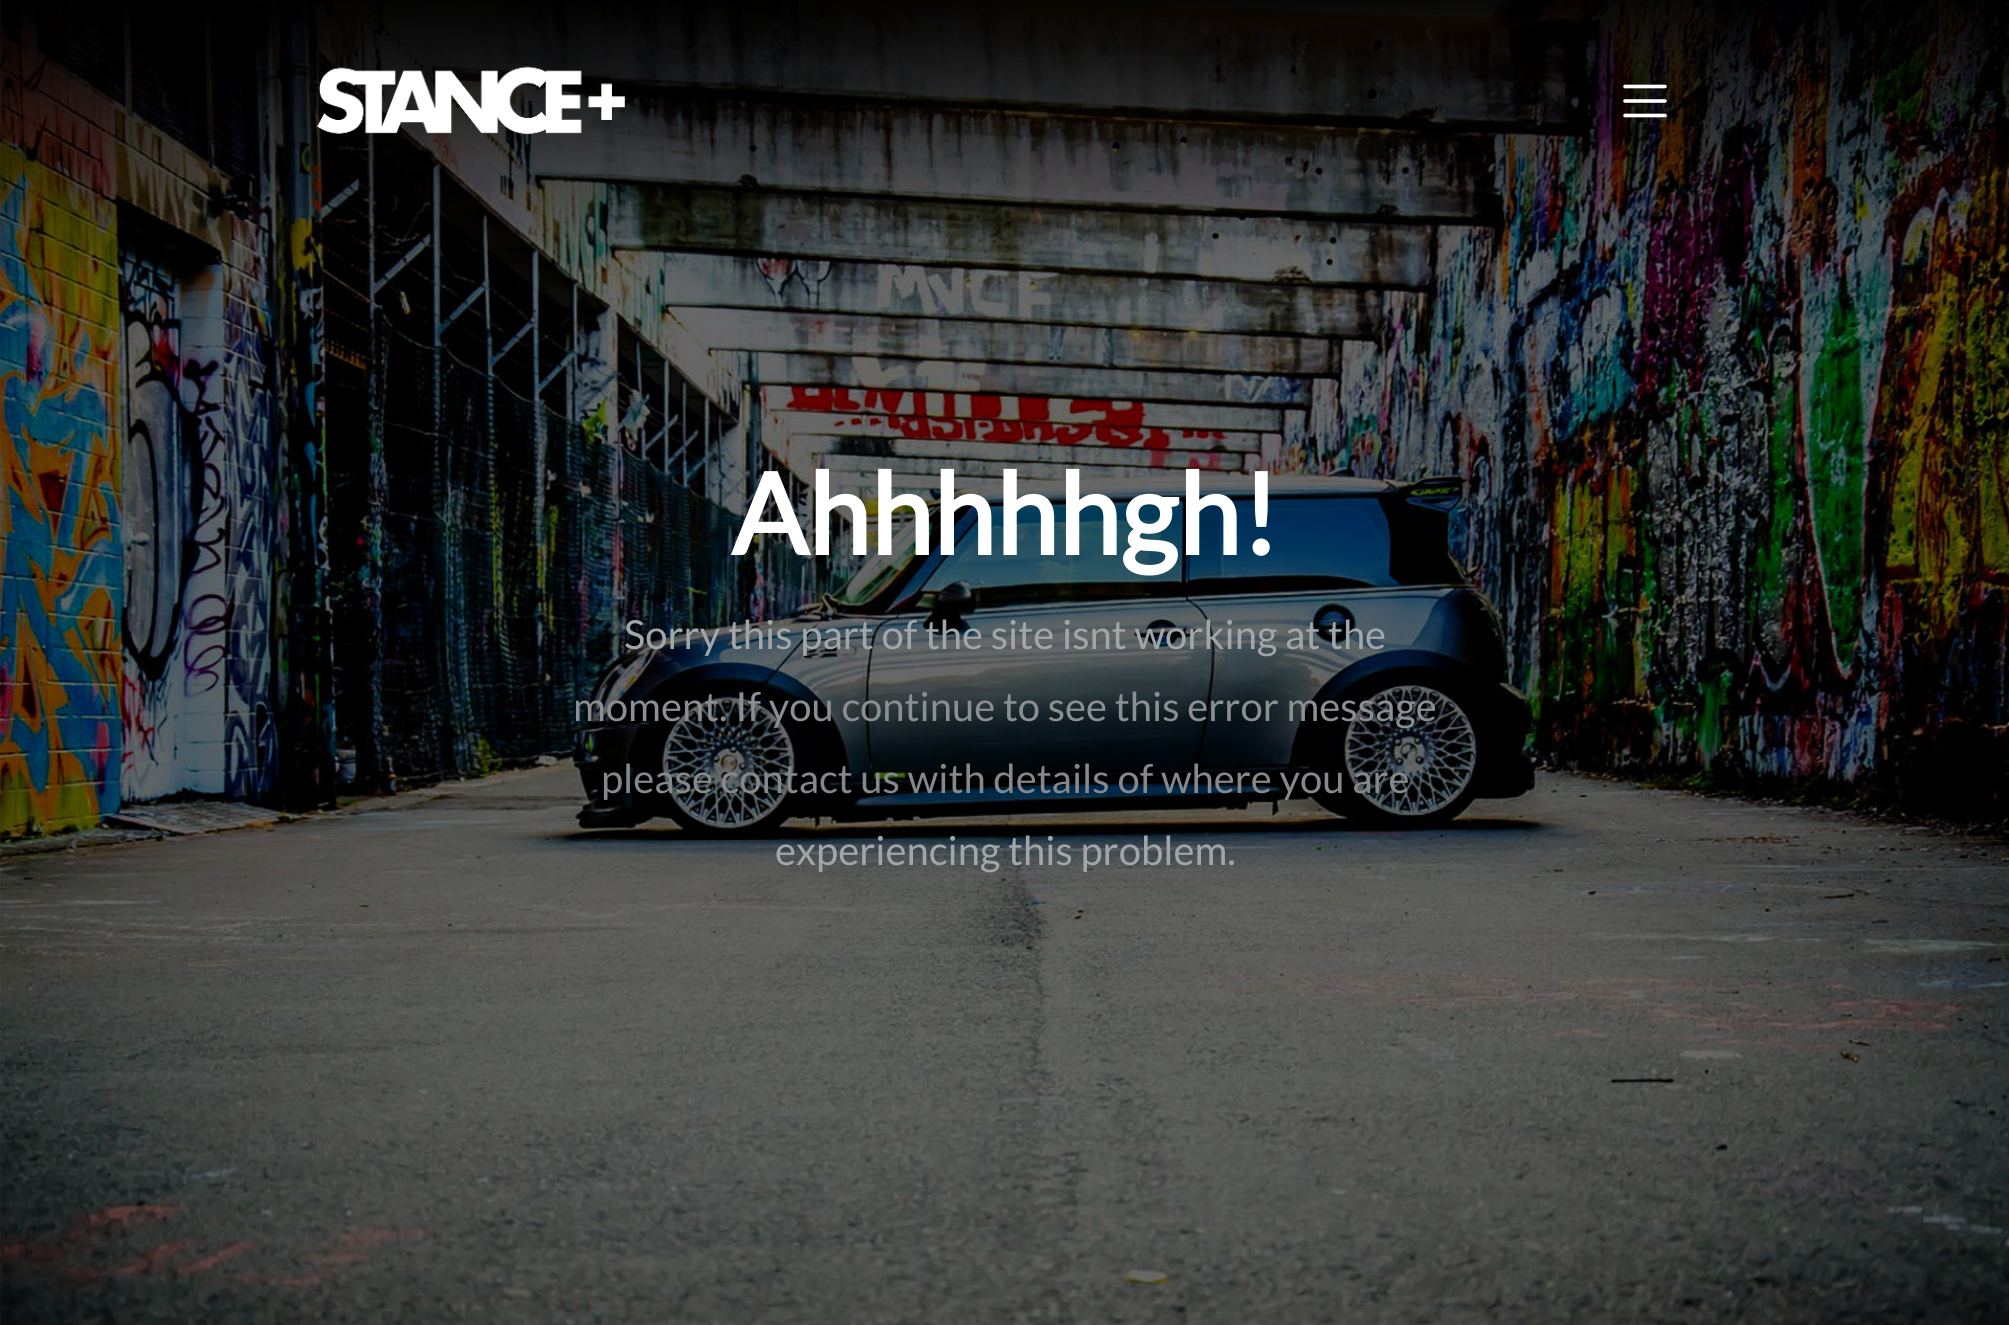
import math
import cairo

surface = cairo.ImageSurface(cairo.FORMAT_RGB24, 2009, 1325)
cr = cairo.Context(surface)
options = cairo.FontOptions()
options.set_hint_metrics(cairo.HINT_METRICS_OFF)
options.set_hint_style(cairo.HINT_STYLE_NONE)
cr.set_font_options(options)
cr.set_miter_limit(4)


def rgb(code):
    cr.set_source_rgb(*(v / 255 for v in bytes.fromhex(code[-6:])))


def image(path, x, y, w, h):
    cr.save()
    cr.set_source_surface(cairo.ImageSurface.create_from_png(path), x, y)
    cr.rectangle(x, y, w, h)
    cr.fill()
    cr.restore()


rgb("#ffffff")
cr.paint()
image("img/2.png", 0, 0, 2009, 1325)
image("img/1.png", 317, 66, 308, 69)
cr.new_path()
cr.move_to(1625, 86.5)
cr.line_to(1665, 86.5)
cr.move_to(1625, 101)
cr.line_to(1665, 101)
cr.move_to(1625, 115.5)
cr.line_to(1665, 115.5)
rgb("#ffffff")
cr.set_line_width(3.6)
cr.set_line_cap(cairo.LINE_CAP_ROUND)
cr.stroke()
cr.select_font_face("Lato", cairo.FONT_SLANT_NORMAL, cairo.FONT_WEIGHT_BOLD)
cr.set_font_size(112.5)
cr.move_to(731, 555)
cr.show_text("Ahhhhhgh!")
cr.select_font_face("Lato")
cr.set_font_size(40)
rgb("#a1a6a9")
cr.move_to(624, 649)
cr.show_text("Sorry this part of the site isnt working at the")
rgb("#8b8f91")
cr.move_to(573, 721)
cr.show_text("moment. If you continue to see this error message")
rgb("#85898b")
cr.move_to(601, 793)
cr.show_text("please contact us with details of where you are")
rgb("#a1a6a9")
cr.move_to(775, 865)
cr.show_text("experiencing this problem.")
surface.write_to_png("page.png")
